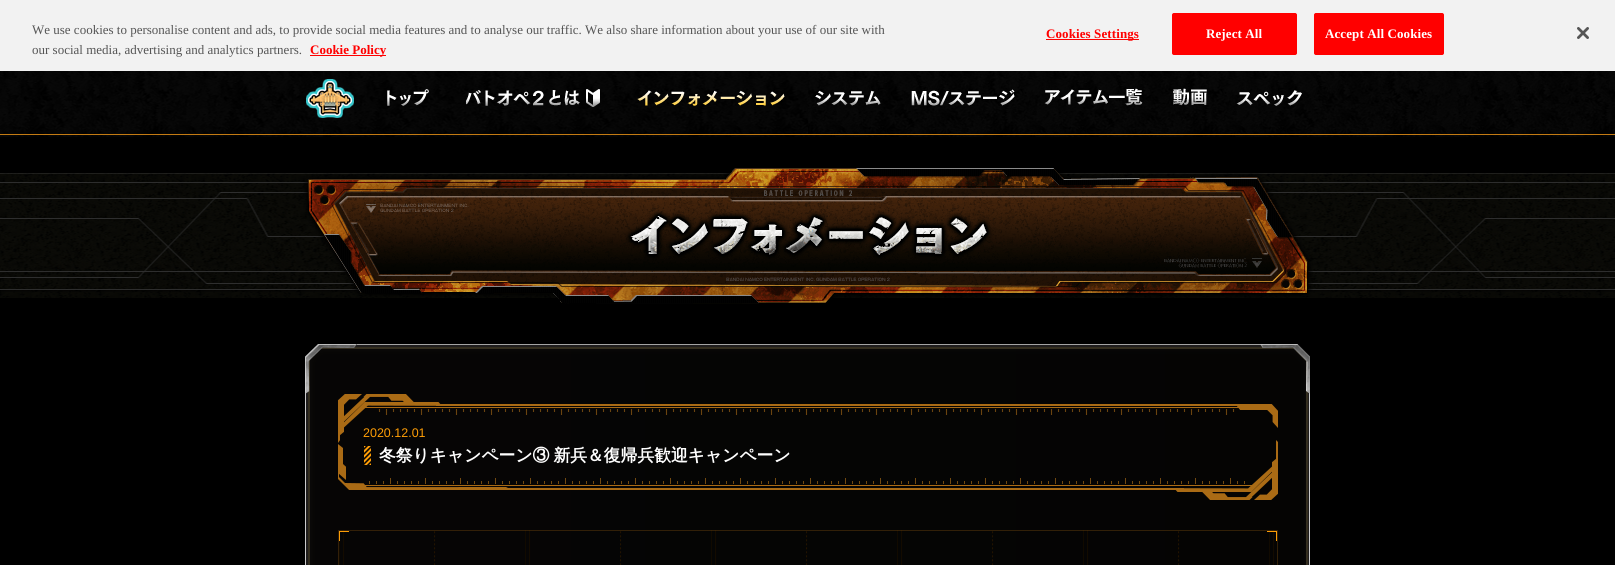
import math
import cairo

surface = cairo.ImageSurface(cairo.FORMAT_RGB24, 1615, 565)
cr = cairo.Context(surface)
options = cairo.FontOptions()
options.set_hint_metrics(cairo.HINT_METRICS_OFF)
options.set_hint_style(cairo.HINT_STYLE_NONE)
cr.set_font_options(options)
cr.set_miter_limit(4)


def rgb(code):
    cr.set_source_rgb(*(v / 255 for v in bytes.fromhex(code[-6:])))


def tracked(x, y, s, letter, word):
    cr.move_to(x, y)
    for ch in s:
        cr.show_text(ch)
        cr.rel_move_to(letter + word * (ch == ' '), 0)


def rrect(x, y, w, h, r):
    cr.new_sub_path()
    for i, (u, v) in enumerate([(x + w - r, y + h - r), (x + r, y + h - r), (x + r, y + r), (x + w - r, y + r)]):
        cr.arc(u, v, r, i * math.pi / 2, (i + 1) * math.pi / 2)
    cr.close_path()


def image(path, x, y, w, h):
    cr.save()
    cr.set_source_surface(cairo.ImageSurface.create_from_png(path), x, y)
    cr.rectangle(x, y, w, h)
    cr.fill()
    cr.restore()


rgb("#000000")
cr.paint()
for x, y, w, h, color in [
    (0, 0, 1615, 71, "#f2f2f2"),
    (310, 55, 76, 1, "#ff0000"),
    (1046, 39, 93, 1, "#ff0000"),
]:
    rgb(color)
    cr.rectangle(x, y, w, h)
    cr.fill()
rrect(1172.5, 13.5, 124, 41, 1.5)
cr.fill_preserve()
cr.set_line_width(1)
cr.stroke()
rrect(1314.5, 13.5, 129, 41, 1.5)
cr.fill_preserve()
cr.stroke()
image("img/1.png", 1577, 27, 12, 12)
image("img/2.png", 323, 71, 485, 66)
image("img/3.png", 0, 71, 323, 66)
image("img/4.png", 808, 71, 807, 66)
image("img/5.png", 306, 79, 48, 39)
image("img/6.png", 387, 89, 42, 17)
image("img/7.png", 466, 89, 134, 18)
image("img/8.png", 637, 90, 148, 16)
image("img/9.png", 815, 90, 66, 16)
image("img/10.png", 911, 89, 104, 17)
image("img/11.png", 1044, 88, 99, 18)
image("img/12.png", 1173, 88, 34, 18)
image("img/13.png", 1236, 90, 66, 16)
image("img/14.png", 0, 173, 1615, 125)
image("img/15.png", 303, 168, 1010, 136)
image("img/16.png", 305, 344, 1005, 50)
image("img/17.png", 305, 394, 1005, 171)
image("img/18.png", 338, 394, 940, 106)
image("img/19.png", 364, 446, 7, 19)
image("img/20.png", 339, 530, 938, 35)
cr.rectangle(338.5, 530.5, 939, 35)
cr.set_source_rgba(0.38, 0.239, 0.051, 0.5)
cr.stroke()
cr.select_font_face("Liberation Serif")
cr.set_font_size(13)
rgb("#555555")
cr.move_to(32, 34)
cr.show_text("We use cookies to personalise content and ads, to provide social media features and to analyse our traffic. We also share information about your use of our site with")
cr.move_to(32, 54)
cr.show_text("our social media, advertising and analytics partners.")
cr.select_font_face("Liberation Serif", cairo.FONT_SLANT_NORMAL, cairo.FONT_WEIGHT_BOLD)
rgb("#ff0000")
cr.move_to(310, 54)
cr.show_text("Cookie Policy")
tracked(1046, 38, "Cookies Settings", 0.1, 0)
rgb("#ffffff")
tracked(1206, 38, "Reject All", 0.1, 0)
tracked(1325, 38, "Accept All Cookies", 0.1, 0)
cr.select_font_face("Liberation Sans")
cr.set_font_size(12.5)
rgb("#fd9d06")
cr.move_to(363, 437)
cr.show_text("2020.12.01")
cr.select_font_face("WenQuanYi Zen Hei", cairo.FONT_SLANT_NORMAL, cairo.FONT_WEIGHT_BOLD)
cr.set_font_size(16.8)
rgb("#ffffff")
tracked(379, 461, "冬祭りキャンペーン③ 新兵＆復帰兵歓迎キャンペーン", 0, -1)
surface.write_to_png("page.png")
